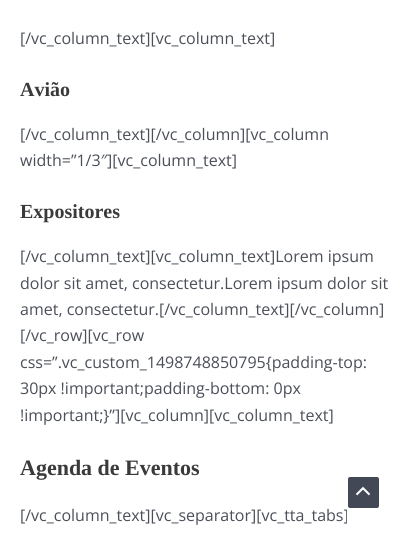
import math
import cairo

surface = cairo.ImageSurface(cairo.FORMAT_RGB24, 409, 538)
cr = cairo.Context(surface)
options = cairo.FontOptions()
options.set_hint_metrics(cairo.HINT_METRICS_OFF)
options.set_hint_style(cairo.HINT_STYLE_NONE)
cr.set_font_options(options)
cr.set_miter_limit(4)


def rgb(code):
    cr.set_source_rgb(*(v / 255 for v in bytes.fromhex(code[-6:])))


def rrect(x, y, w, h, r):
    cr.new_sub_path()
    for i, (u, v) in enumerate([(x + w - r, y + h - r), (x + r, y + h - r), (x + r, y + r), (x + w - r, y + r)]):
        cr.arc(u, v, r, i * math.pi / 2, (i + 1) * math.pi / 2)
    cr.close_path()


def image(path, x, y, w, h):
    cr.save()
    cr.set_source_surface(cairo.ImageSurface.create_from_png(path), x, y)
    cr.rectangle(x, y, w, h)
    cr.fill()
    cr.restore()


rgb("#ffffff")
cr.paint()
rgb("#434856")
rrect(348, 477, 31, 31, 2)
cr.fill()
image("img/1.png", 356, 486, 15, 10)
cr.select_font_face("Open Sans")
cr.set_font_size(16)
rgb("#4b4f58")
cr.move_to(20, 44)
cr.show_text("[/vc_column_text][vc_column_text]")
cr.select_font_face("Liberation Serif", cairo.FONT_SLANT_NORMAL, cairo.FONT_WEIGHT_BOLD)
cr.set_font_size(20)
rgb("#3a3a3a")
cr.move_to(20, 96)
cr.show_text("Avião")
cr.select_font_face("Open Sans")
cr.set_font_size(16)
rgb("#4b4f58")
cr.move_to(20, 140)
cr.show_text("[/vc_column_text][/vc_column][vc_column")
cr.move_to(20, 166)
cr.show_text("width=”1/3″][vc_column_text]")
cr.select_font_face("Liberation Serif", cairo.FONT_SLANT_NORMAL, cairo.FONT_WEIGHT_BOLD)
cr.set_font_size(20)
rgb("#3a3a3a")
cr.move_to(20, 218)
cr.show_text("Expositores")
cr.select_font_face("Open Sans")
cr.set_font_size(16)
rgb("#4b4f58")
for x, y, s in [
    (20, 262, "[/vc_column_text][vc_column_text]Lorem ipsum"),
    (20, 289, "dolor sit amet, consectetur.Lorem ipsum dolor sit"),
    (20, 315, "amet, consectetur.[/vc_column_text][/vc_column]"),
    (20, 341, "[/vc_row][vc_row"),
    (20, 368, "css=”.vc_custom_1498748850795{padding-top:"),
    (20, 394, "30px !important;padding-bottom: 0px"),
    (20, 421, "!important;}”][vc_column][vc_column_text]"),
]:
    cr.move_to(x, y)
    cr.show_text(s)
cr.select_font_face("Liberation Serif", cairo.FONT_SLANT_NORMAL, cairo.FONT_WEIGHT_BOLD)
cr.set_font_size(22)
rgb("#3a3a3a")
cr.move_to(20, 475)
cr.show_text("Agenda de Eventos")
cr.select_font_face("Open Sans")
cr.set_font_size(16)
rgb("#4b4f58")
cr.move_to(20, 521)
cr.show_text("[/vc_column_text][vc_separator][vc_tta_tabs]")
surface.write_to_png("page.png")
